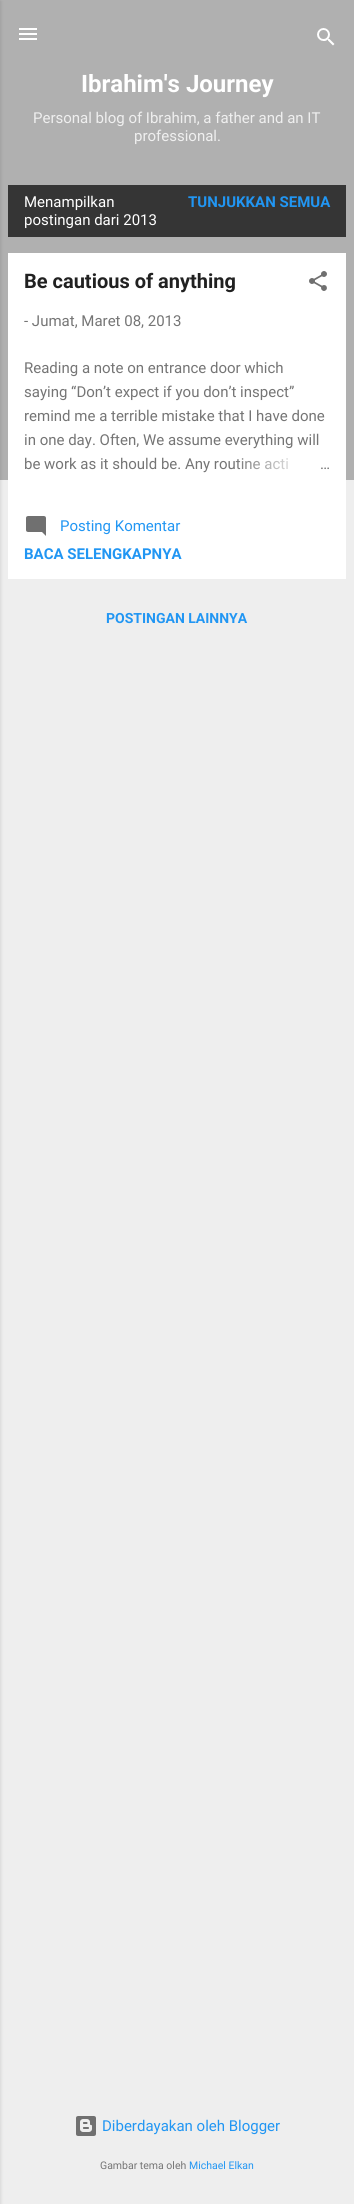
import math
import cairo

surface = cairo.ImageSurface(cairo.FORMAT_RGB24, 354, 2204)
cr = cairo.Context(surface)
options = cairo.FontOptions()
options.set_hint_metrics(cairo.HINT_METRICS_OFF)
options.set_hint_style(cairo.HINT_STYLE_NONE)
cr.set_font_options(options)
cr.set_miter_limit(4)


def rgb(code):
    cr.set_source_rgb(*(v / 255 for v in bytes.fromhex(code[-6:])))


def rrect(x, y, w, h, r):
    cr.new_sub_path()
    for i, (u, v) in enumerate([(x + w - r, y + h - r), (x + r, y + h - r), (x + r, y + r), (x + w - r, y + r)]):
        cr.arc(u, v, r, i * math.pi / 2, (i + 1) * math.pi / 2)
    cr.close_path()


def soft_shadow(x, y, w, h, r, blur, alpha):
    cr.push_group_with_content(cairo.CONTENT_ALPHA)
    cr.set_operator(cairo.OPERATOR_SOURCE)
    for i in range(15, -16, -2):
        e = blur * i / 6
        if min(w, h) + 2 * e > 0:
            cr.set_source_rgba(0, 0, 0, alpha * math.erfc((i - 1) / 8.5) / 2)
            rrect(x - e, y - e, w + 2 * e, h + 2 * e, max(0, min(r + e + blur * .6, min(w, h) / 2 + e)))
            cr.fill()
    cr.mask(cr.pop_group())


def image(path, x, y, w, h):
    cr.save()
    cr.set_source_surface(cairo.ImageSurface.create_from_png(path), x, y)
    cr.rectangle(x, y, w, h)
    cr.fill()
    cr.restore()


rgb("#eeeeee")
cr.paint()
rgb("#b0b0b0")
cr.rectangle(0, 0, 354, 480)
cr.fill()
rgb("#000000")
soft_shadow(-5, 1, 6, 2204, 0, 1.5, 0.1)
image("img/1.png", 19, 28, 18, 12)
image("img/2.png", 317, 28, 18, 18)
rgb("#353535")
cr.rectangle(8, 185, 338, 52)
cr.fill()
rgb("#ffffff")
cr.rectangle(8, 253, 338, 326)
cr.fill()
image("img/3.png", 309, 271, 18, 20)
image("img/4.png", 26, 516, 20, 20)
image("img/5.png", 76, 2116, 20, 20)
cr.select_font_face("Roboto", cairo.FONT_SLANT_NORMAL, cairo.FONT_WEIGHT_BOLD)
cr.set_font_size(24)
cr.move_to(81, 92)
cr.show_text("Ibrahim's Journey")
cr.select_font_face("Roboto")
cr.set_font_size(15)
rgb("#efefef")
cr.move_to(33, 123)
cr.show_text("Personal blog of Ibrahim, a father and an IT")
cr.move_to(134, 141)
cr.show_text("professional.")
rgb("#ffffff")
cr.move_to(24, 207)
cr.show_text("Menampilkan")
cr.move_to(24, 225)
cr.show_text("postingan dari 2013")
cr.select_font_face("Roboto", cairo.FONT_SLANT_NORMAL, cairo.FONT_WEIGHT_BOLD)
rgb("#2196f3")
cr.move_to(188, 207)
cr.show_text("TUNJUKKAN SEMUA")
cr.set_font_size(20)
rgb("#212121")
cr.move_to(24, 288)
cr.show_text("Be cautious of anything")
cr.select_font_face("Roboto")
cr.set_font_size(15)
rgb("#757575")
for x, y, s in [
    (24, 326, "- Jumat, Maret 08, 2013"),
    (24, 373, "Reading a note on entrance door which"),
    (24, 397, "saying “Don’t expect if you don’t inspect”"),
    (24, 421, "remind me a terrible mistake that I have done"),
    (24, 445, "in one day. Often, We assume everything will"),
    (24, 469, "be work as it should be. Any routine acti"),
]:
    cr.move_to(x, y)
    cr.show_text(s)
gradient = cairo.LinearGradient(330, 464, 234, 464)
gradient.add_color_stop_rgba(0, 1, 1, 1, 1)
gradient.add_color_stop_rgba(0.2, 1, 1, 1, 1)
gradient.add_color_stop_rgba(1, 1, 1, 1, 0)
cr.set_source(gradient)
cr.rectangle(236, 458, 52, 12)
cr.fill()
rgb("#757575")
cr.move_to(320, 469)
cr.show_text("…")
rgb("#2196f3")
cr.move_to(60, 531)
cr.show_text("Posting Komentar")
cr.select_font_face("Roboto", cairo.FONT_SLANT_NORMAL, cairo.FONT_WEIGHT_BOLD)
cr.move_to(24, 559)
cr.show_text("BACA SELENGKAPNYA")
cr.set_font_size(14)
cr.move_to(106, 623)
cr.show_text("POSTINGAN LAINNYA")
cr.select_font_face("Roboto")
cr.set_font_size(15)
cr.move_to(102, 2131)
cr.show_text("Diberdayakan oleh Blogger")
cr.set_font_size(10.5)
rgb("#757575")
cr.move_to(100, 2169)
cr.show_text("Gambar tema oleh")
rgb("#2196f3")
cr.move_to(189, 2169)
cr.show_text("Michael Elkan")
surface.write_to_png("page.png")
